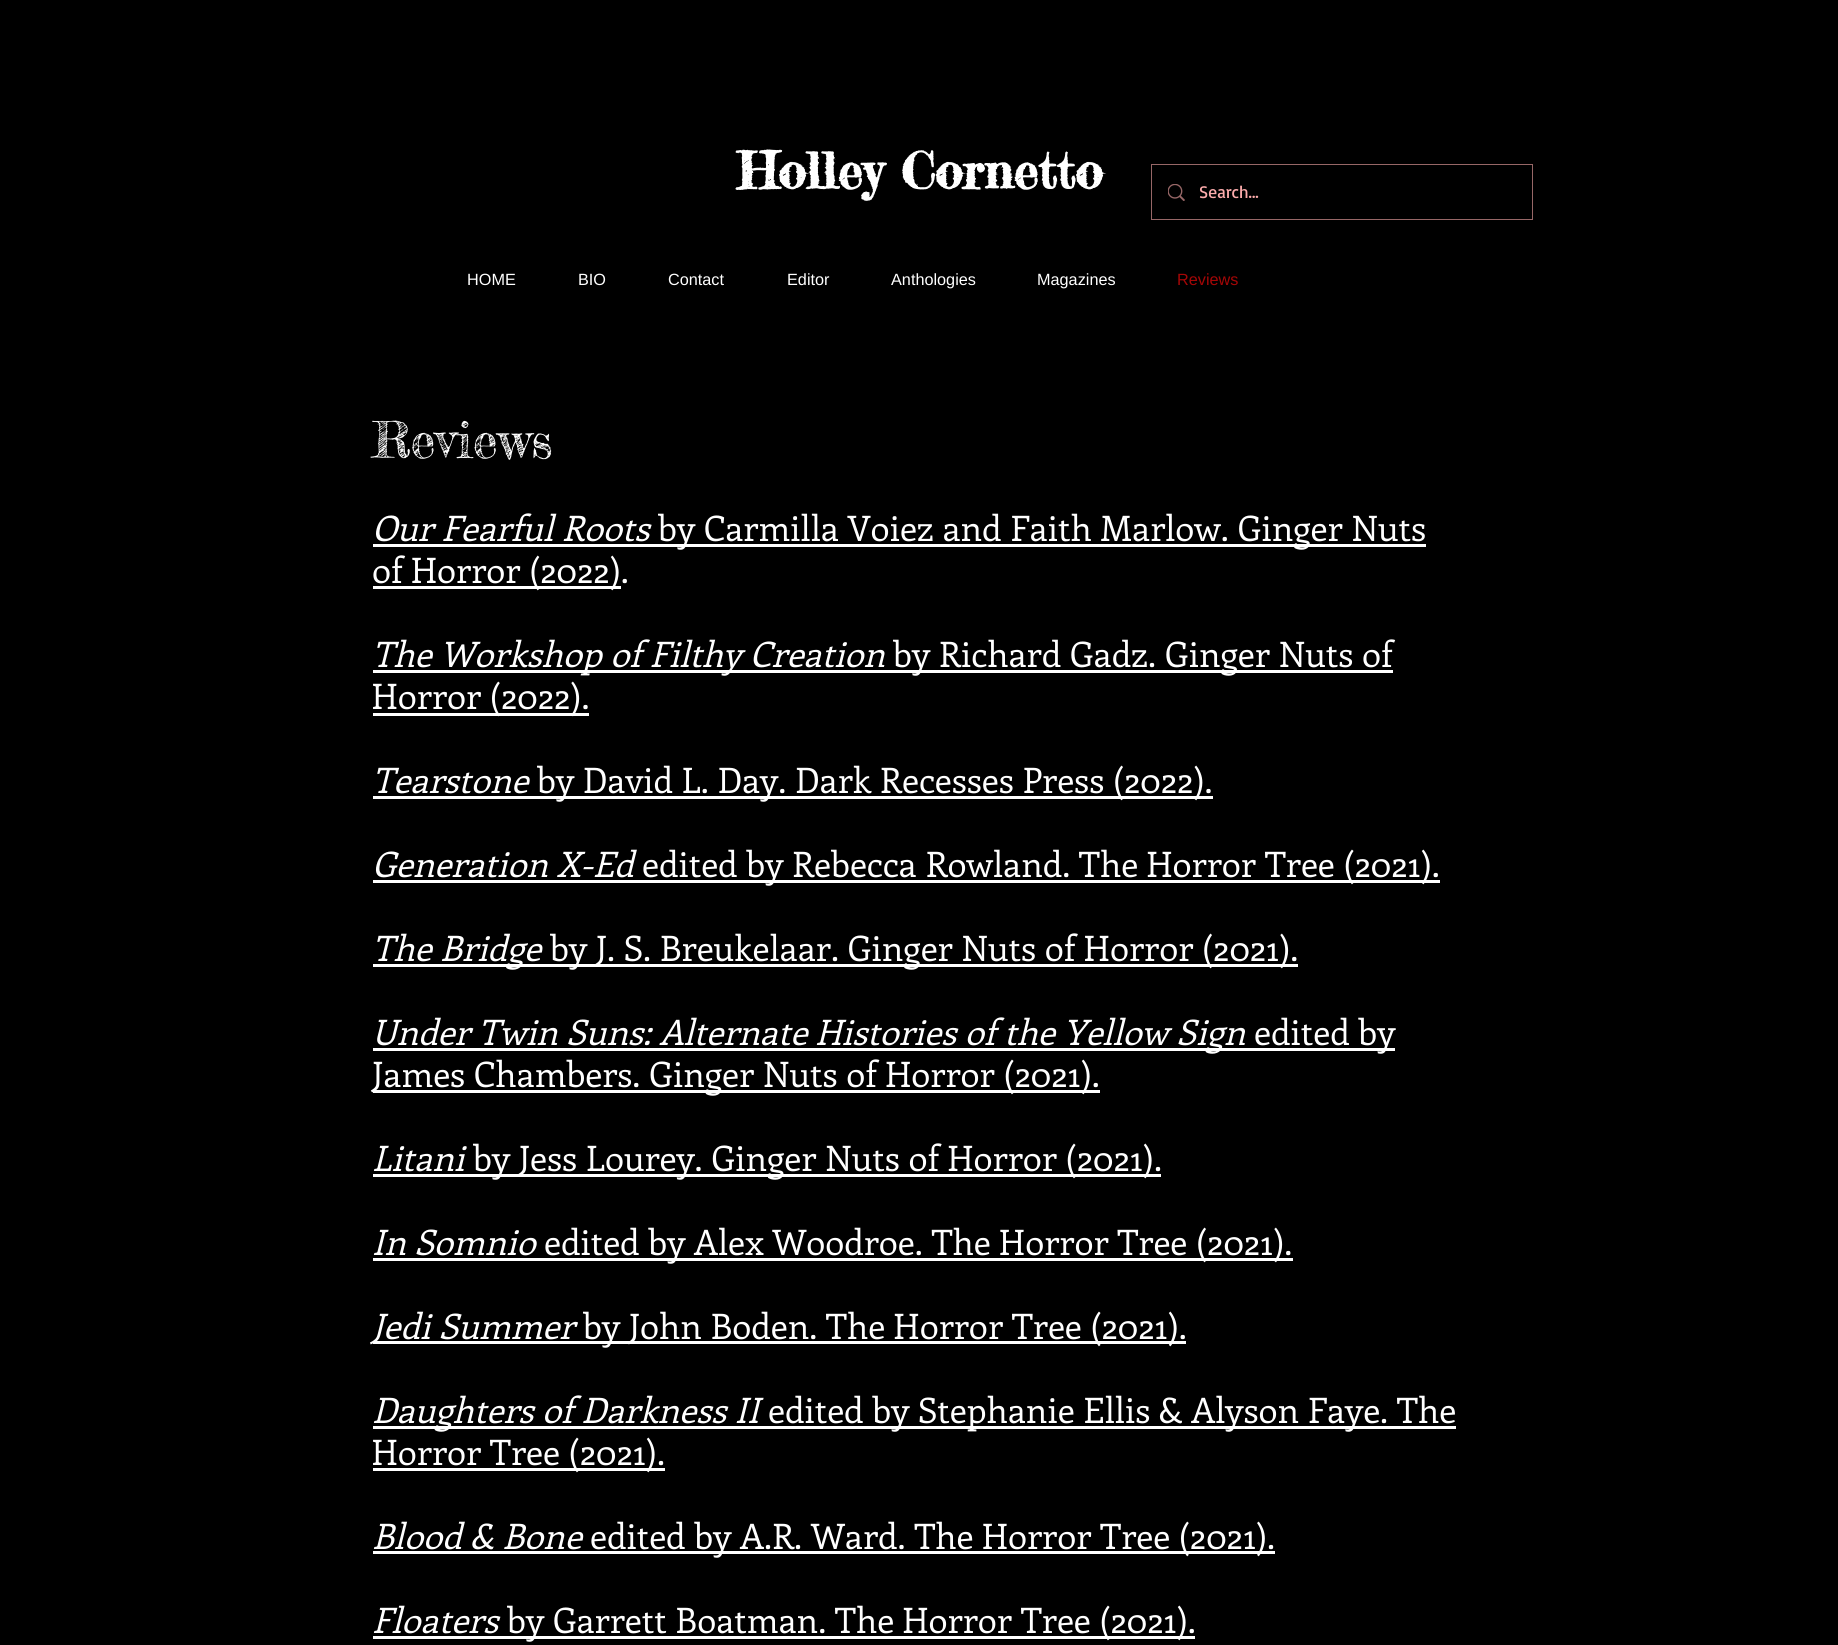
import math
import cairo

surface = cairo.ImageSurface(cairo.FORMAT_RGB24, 1838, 1645)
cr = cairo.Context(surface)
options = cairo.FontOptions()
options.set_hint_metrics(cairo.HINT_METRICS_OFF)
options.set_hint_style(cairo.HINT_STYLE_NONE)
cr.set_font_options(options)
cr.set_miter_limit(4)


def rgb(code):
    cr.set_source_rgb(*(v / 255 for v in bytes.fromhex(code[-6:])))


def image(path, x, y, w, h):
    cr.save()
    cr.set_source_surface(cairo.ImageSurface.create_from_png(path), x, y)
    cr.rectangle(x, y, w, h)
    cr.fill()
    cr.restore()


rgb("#000000")
cr.paint()
cr.rectangle(1151.5, 164.5, 381, 55)
rgb("#976767")
cr.set_line_width(1)
cr.stroke()
image("img/1.png", 1168, 184, 17, 17)
for x, y, w, h, color in [
    (373, 544, 1053, 3, "#ffffff"),
    (373, 586, 248, 3, "#ffffff"),
    (373, 670, 1020, 3, "#ffffff"),
    (373, 713, 216, 3, "#ffffff"),
    (373, 796, 840, 3, "#ffffff"),
    (373, 880, 1067, 3, "#ffffff"),
    (373, 964, 168, 3, "#ffffff"),
    (541, 964, 757, 3, "#ffffff"),
    (373, 1048, 1022, 3, "#ffffff"),
    (373, 1090, 727, 3, "#ffffff"),
    (373, 1174, 788, 3, "#ffffff"),
    (373, 1258, 920, 3, "#ffffff"),
    (373, 1341, 201, 3, "#ffffff"),
    (574, 1341, 612, 3, "#ffffff"),
    (373, 1426, 1083, 3, "#ffffff"),
    (373, 1468, 292, 3, "#ffffff"),
    (373, 1551, 902, 3, "#ffffff"),
    (373, 1636, 822, 3, "#ffffff"),
]:
    rgb(color)
    cr.rectangle(x, y, w, h)
    cr.fill()
cr.select_font_face("Fredericka the Great", cairo.FONT_SLANT_NORMAL, cairo.FONT_WEIGHT_BOLD)
cr.set_font_size(50)
cr.move_to(737, 189)
cr.show_text("Holley Cornetto")
cr.select_font_face("Liberation Sans")
cr.set_font_size(16.25)
for x, y, s in [
    (467, 285, "HOME"),
    (578, 285, "BIO"),
    (668, 285, "Contact"),
    (787, 285, "Editor"),
    (891, 285, "Anthologies"),
    (1037, 285, "Magazines"),
]:
    cr.move_to(x, y)
    cr.show_text(s)
rgb("#a40606")
cr.move_to(1177, 285)
cr.show_text("Reviews")
cr.select_font_face("Basic")
cr.set_font_size(17.5)
rgb("#fcabab")
cr.move_to(1199, 198)
cr.show_text("Search...")
cr.select_font_face("Fredericka the Great")
cr.set_font_size(50)
rgb("#ffffff")
cr.move_to(372, 458)
cr.show_text("Reviews")
cr.select_font_face("Enriqueta", cairo.FONT_SLANT_ITALIC)
cr.set_font_size(35)
cr.move_to(372, 541)
cr.show_text("Our Fearful Roots")
cr.select_font_face("Enriqueta")
cr.move_to(658, 541)
cr.show_text("by Carmilla Voiez and Faith Marlow. Ginger Nuts")
cr.move_to(372, 583)
cr.show_text("of Horror (2022).")
cr.select_font_face("Enriqueta", cairo.FONT_SLANT_ITALIC)
cr.move_to(372, 667)
cr.show_text("The Workshop of Filthy Creation")
cr.select_font_face("Enriqueta")
cr.move_to(893, 667)
cr.show_text("by Richard Gadz. Ginger Nuts of")
cr.move_to(372, 709)
cr.show_text("Horror (2022).")
cr.select_font_face("Enriqueta", cairo.FONT_SLANT_ITALIC)
cr.move_to(372, 793)
cr.show_text("Tearstone")
cr.select_font_face("Enriqueta")
cr.move_to(537, 793)
cr.show_text("by David L. Day. Dark Recesses Press (2022).")
cr.select_font_face("Enriqueta", cairo.FONT_SLANT_ITALIC)
cr.move_to(372, 877)
cr.show_text("Generation X-Ed")
cr.select_font_face("Enriqueta")
cr.move_to(642, 877)
cr.show_text("edited by Rebecca Rowland. The Horror Tree (2021).")
cr.select_font_face("Enriqueta", cairo.FONT_SLANT_ITALIC)
cr.move_to(372, 961)
cr.show_text("The Bridge")
cr.select_font_face("Enriqueta")
cr.move_to(550, 961)
cr.show_text("by J. S. Breukelaar. Ginger Nuts of Horror (2021).")
cr.select_font_face("Enriqueta", cairo.FONT_SLANT_ITALIC)
cr.move_to(372, 1045)
cr.show_text("Under Twin Suns: Alternate Histories of the Yellow Sign")
cr.select_font_face("Enriqueta")
cr.move_to(1254, 1045)
cr.show_text("edited by")
cr.move_to(372, 1087)
cr.show_text("James Chambers. Ginger Nuts of Horror (2021).")
cr.select_font_face("Enriqueta", cairo.FONT_SLANT_ITALIC)
cr.move_to(372, 1171)
cr.show_text("Litani")
cr.select_font_face("Enriqueta")
cr.move_to(473, 1171)
cr.show_text("by Jess Lourey. Ginger Nuts of Horror (2021).")
cr.select_font_face("Enriqueta", cairo.FONT_SLANT_ITALIC)
cr.move_to(372, 1255)
cr.show_text("In Somnio")
cr.select_font_face("Enriqueta")
cr.move_to(544, 1255)
cr.show_text("edited by Alex Woodroe. The Horror Tree (2021).")
cr.select_font_face("Enriqueta", cairo.FONT_SLANT_ITALIC)
cr.move_to(372, 1339)
cr.show_text("Jedi Summer")
cr.select_font_face("Enriqueta")
cr.move_to(583, 1339)
cr.show_text("by John Boden. The Horror Tree (2021).")
cr.select_font_face("Enriqueta", cairo.FONT_SLANT_ITALIC)
cr.move_to(372, 1423)
cr.show_text("Daughters of Darkness II")
cr.select_font_face("Enriqueta")
cr.move_to(768, 1423)
cr.show_text("edited by Stephanie Ellis & Alyson Faye. The")
cr.move_to(372, 1465)
cr.show_text("Horror Tree (2021).")
cr.select_font_face("Enriqueta", cairo.FONT_SLANT_ITALIC)
cr.move_to(372, 1549)
cr.show_text("Blood & Bone")
cr.select_font_face("Enriqueta")
cr.move_to(590, 1549)
cr.show_text("edited by A.R. Ward. The Horror Tree (2021).")
cr.select_font_face("Enriqueta", cairo.FONT_SLANT_ITALIC)
cr.move_to(372, 1633)
cr.show_text("Floaters")
cr.select_font_face("Enriqueta")
cr.move_to(507, 1633)
cr.show_text("by Garrett Boatman. The Horror Tree (2021).")
surface.write_to_png("page.png")
